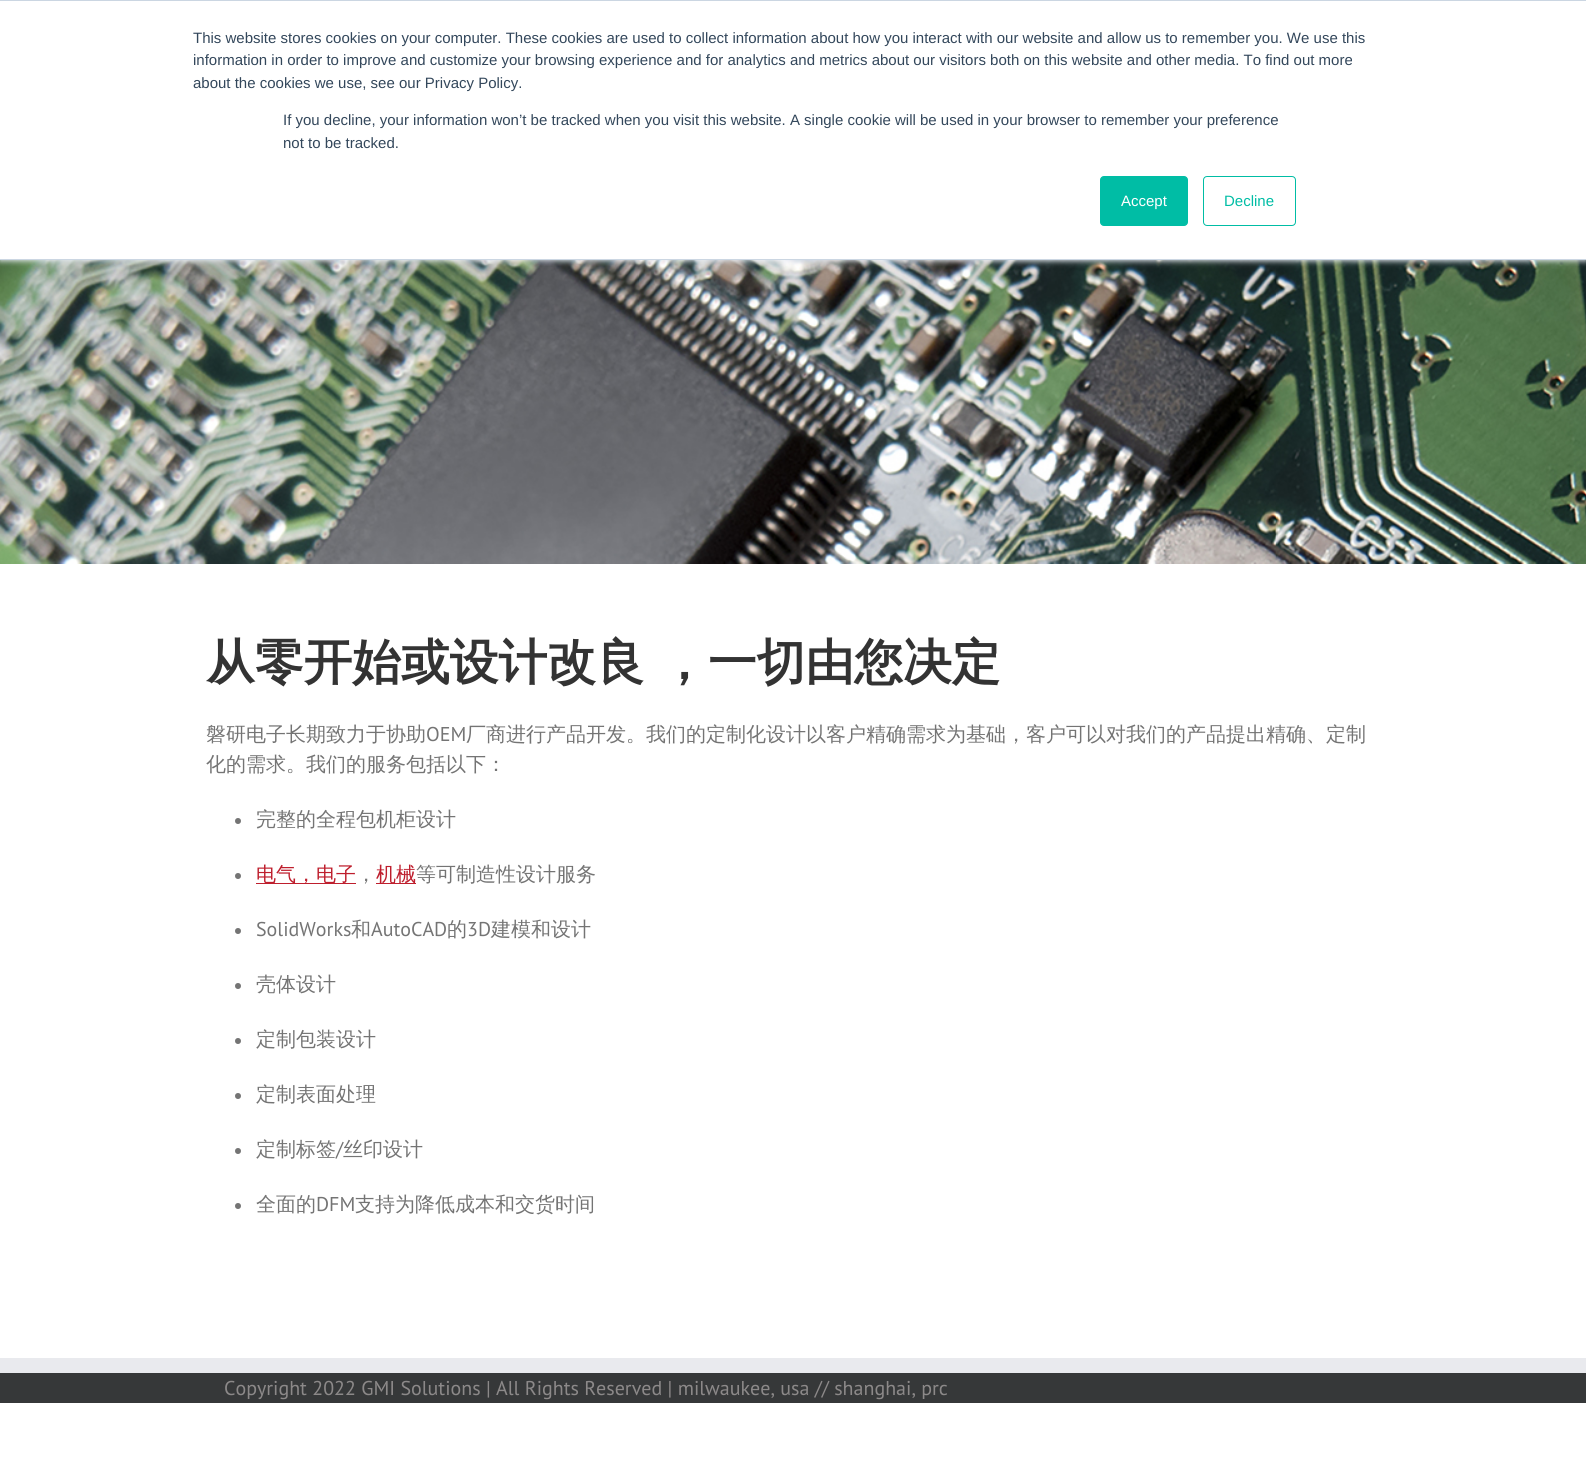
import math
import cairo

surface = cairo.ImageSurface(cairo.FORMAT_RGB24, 1586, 1484)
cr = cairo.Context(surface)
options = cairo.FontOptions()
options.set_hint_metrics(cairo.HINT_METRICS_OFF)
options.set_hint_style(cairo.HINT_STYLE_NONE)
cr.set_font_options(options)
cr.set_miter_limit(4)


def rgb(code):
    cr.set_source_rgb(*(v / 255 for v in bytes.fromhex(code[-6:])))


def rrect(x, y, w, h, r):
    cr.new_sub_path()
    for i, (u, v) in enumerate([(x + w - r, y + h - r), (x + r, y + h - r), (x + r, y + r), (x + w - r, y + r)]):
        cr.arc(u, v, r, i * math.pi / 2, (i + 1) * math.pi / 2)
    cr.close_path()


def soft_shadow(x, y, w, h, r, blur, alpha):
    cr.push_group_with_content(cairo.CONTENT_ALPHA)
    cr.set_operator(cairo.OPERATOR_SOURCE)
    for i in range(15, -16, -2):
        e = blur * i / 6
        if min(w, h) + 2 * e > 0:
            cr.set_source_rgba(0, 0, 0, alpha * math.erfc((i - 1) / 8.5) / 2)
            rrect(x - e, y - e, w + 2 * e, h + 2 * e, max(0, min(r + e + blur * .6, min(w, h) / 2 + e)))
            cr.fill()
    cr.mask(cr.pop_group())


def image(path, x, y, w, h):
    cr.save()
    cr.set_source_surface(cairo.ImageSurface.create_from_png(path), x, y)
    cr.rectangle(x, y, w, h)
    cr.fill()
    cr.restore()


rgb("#ffffff")
cr.paint()
image("img/1.png", 0, 260, 1586, 304)
rgb("#eaf0f6")
soft_shadow(0, 1, 1586, 260, 0, 3, 1)
for x, y, w, h, color in [
    (0, 1, 1586, 258, "#ffffff"),
    (0, 0, 1586, 1, "#cbd6e2"),
    (0, 259, 1586, 1, "#cbd6e2"),
]:
    rgb(color)
    cr.rectangle(x, y, w, h)
    cr.fill()
rgb("#00bda5")
rrect(1100.5, 176.5, 87, 49, 3.5)
cr.fill_preserve()
cr.set_line_width(1)
cr.stroke()
rrect(1203.5, 176.5, 92, 49, 3.5)
cr.stroke()
rgb("#747474")
cr.arc(238, 821, 3, 0, 2 * math.pi)
cr.fill()
cr.arc(238, 876, 3, 0, 2 * math.pi)
cr.fill()
rgb("#be1e2d")
cr.rectangle(256, 883, 100, 1)
cr.fill()
cr.rectangle(376, 883, 40, 1)
cr.fill()
rgb("#747474")
cr.arc(238, 931, 3, 0, 2 * math.pi)
cr.fill()
cr.arc(238, 986, 3, 0, 2 * math.pi)
cr.fill()
cr.arc(238, 1041, 3, 0, 2 * math.pi)
cr.fill()
cr.arc(238, 1096, 3, 0, 2 * math.pi)
cr.fill()
cr.arc(238, 1151, 3, 0, 2 * math.pi)
cr.fill()
cr.arc(238, 1206, 3, 0, 2 * math.pi)
cr.fill()
rgb("#363839")
cr.rectangle(0, 1373, 1586, 30)
cr.fill()
rgb("#e9eaee")
cr.rectangle(0, 1358, 1586, 15)
cr.fill()
cr.select_font_face("Liberation Sans")
cr.set_font_size(15)
rgb("#33475b")
for x, y, s in [
    (193, 43, "This website stores cookies on your computer. These cookies are used to collect information about how you interact with our website and allow us to remember you. We use this"),
    (193, 65, "information in order to improve and customize your browsing experience and for analytics and metrics about our visitors both on this website and other media. To find out more"),
    (193, 88, "about the cookies we use, see our Privacy Policy."),
    (283, 125, "If you decline, your information won’t be tracked when you visit this website. A single cookie will be used in your browser to remember your preference"),
    (283, 148, "not to be tracked."),
]:
    cr.move_to(x, y)
    cr.show_text(s)
rgb("#ffffff")
cr.move_to(1121, 206)
cr.show_text("Accept")
rgb("#00bda5")
cr.move_to(1224, 206)
cr.show_text("Decline")
cr.select_font_face("WenQuanYi Zen Hei", cairo.FONT_SLANT_NORMAL, cairo.FONT_WEIGHT_BOLD)
cr.set_font_size(48.75)
rgb("#333333")
cr.move_to(206, 679)
cr.show_text("从零开始或设计改良 ，一切由您决定")
cr.select_font_face("WenQuanYi Zen Hei Medium")
cr.set_font_size(20)
rgb("#747474")
cr.move_to(206, 741)
cr.show_text("磐研电子长期致力于协助")
cr.select_font_face("PT Sans")
cr.move_to(426, 741)
cr.show_text("OEM")
cr.select_font_face("WenQuanYi Zen Hei Medium")
for x, y, s in [
    (466, 741, "厂商进行产品开发。我们的定制化设计以客户精确需求为基础，客户可以对我们的产品提出精确、定制"),
    (206, 771, "化的需求。我们的服务包括以下："),
    (256, 826, "完整的全程包机柜设计"),
]:
    cr.move_to(x, y)
    cr.show_text(s)
rgb("#be1e2d")
cr.move_to(256, 881)
cr.show_text("电气，电子")
cr.move_to(376, 881)
cr.show_text("机械")
rgb("#747474")
cr.move_to(416, 881)
cr.show_text("等可制造性设计服务")
cr.move_to(356, 881)
cr.show_text("，")
cr.select_font_face("PT Sans")
cr.move_to(256, 936)
cr.show_text("SolidWorks")
cr.select_font_face("WenQuanYi Zen Hei Medium")
cr.move_to(351, 936)
cr.show_text("和")
cr.select_font_face("PT Sans")
cr.move_to(371, 936)
cr.show_text("AutoCAD")
cr.select_font_face("WenQuanYi Zen Hei Medium")
cr.move_to(447, 936)
cr.show_text("的")
cr.select_font_face("PT Sans")
cr.move_to(467, 936)
cr.show_text("3D")
cr.select_font_face("WenQuanYi Zen Hei Medium")
for x, y, s in [
    (491, 936, "建模和设计"),
    (256, 991, "壳体设计"),
    (256, 1046, "定制包装设计"),
    (256, 1101, "定制表面处理"),
    (256, 1156, "定制标签"),
]:
    cr.move_to(x, y)
    cr.show_text(s)
cr.select_font_face("PT Sans")
cr.move_to(336, 1156)
cr.show_text("/")
cr.select_font_face("WenQuanYi Zen Hei Medium")
cr.move_to(343, 1156)
cr.show_text("丝印设计")
cr.move_to(256, 1211)
cr.show_text("全面的")
cr.select_font_face("PT Sans")
cr.move_to(316, 1211)
cr.show_text("DFM")
cr.select_font_face("WenQuanYi Zen Hei Medium")
cr.move_to(355, 1211)
cr.show_text("支持为降低成本和交货时间")
cr.select_font_face("PT Sans")
rgb("#8c8989")
cr.move_to(224, 1395)
cr.show_text("Copyright 2022 GMI Solutions | All Rights Reserved | milwaukee, usa // shanghai, prc")
surface.write_to_png("page.png")
